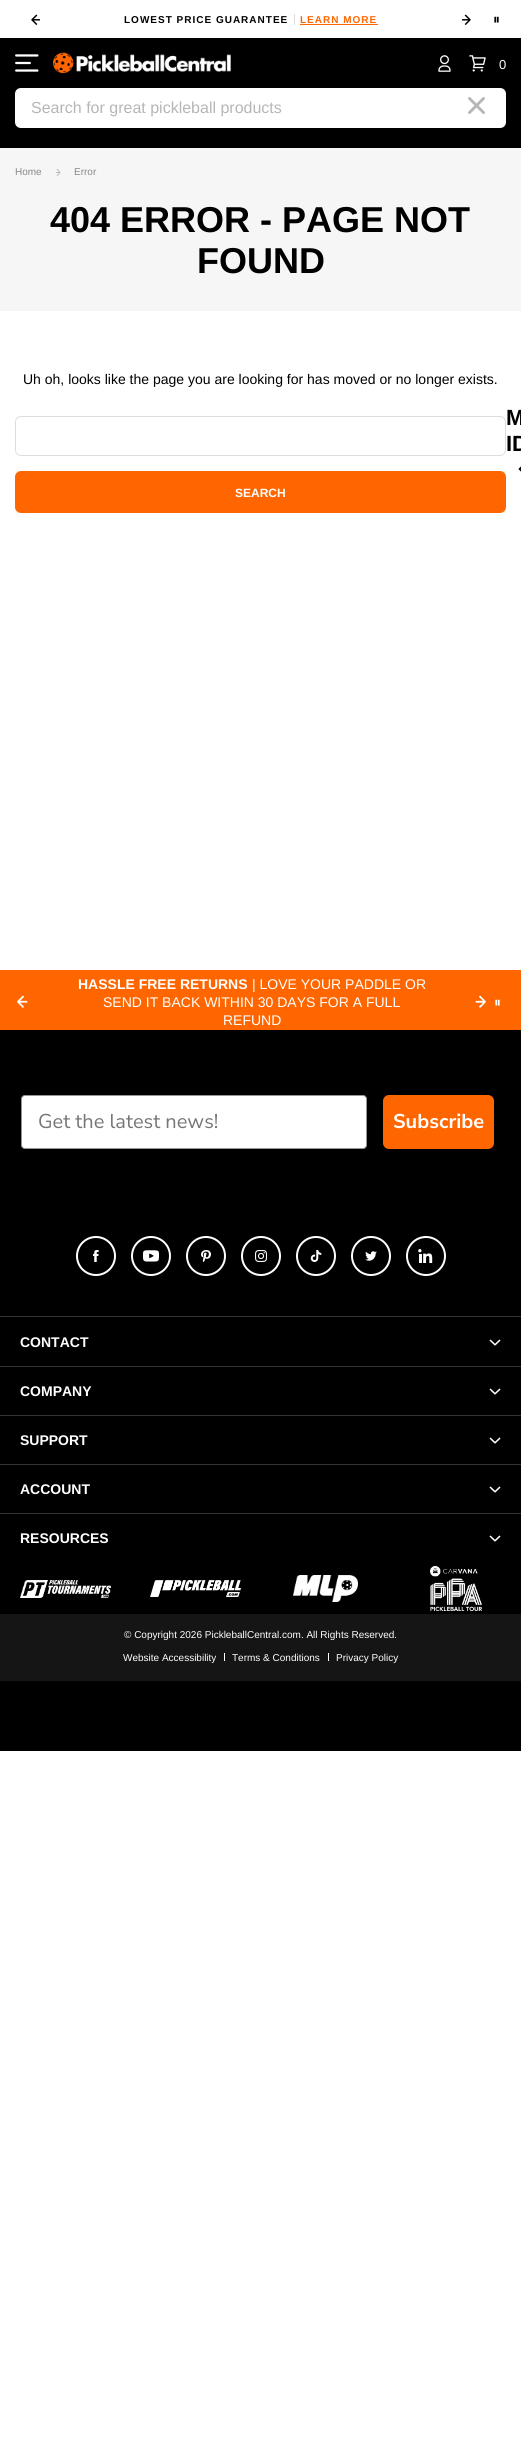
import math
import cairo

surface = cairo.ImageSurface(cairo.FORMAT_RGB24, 521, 2448)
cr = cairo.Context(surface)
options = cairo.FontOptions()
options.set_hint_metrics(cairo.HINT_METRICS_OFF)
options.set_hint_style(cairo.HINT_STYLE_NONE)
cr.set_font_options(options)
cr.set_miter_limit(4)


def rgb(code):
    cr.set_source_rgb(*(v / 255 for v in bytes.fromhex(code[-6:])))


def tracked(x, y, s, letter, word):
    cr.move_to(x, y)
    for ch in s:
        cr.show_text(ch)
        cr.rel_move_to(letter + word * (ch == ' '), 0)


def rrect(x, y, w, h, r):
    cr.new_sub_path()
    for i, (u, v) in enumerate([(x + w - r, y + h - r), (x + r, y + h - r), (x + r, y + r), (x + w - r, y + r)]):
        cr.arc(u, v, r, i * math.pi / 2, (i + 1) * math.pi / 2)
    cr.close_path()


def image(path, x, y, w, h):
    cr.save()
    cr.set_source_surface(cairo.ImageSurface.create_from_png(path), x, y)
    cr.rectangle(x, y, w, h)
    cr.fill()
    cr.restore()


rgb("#ffffff")
cr.paint()
image("img/1.png", 31, 14, 9, 11)
rgb("#dddddd")
cr.rectangle(294, 14, 1, 11)
cr.fill()
rgb("#ff6600")
cr.rectangle(300, 24, 78, 1)
cr.fill()
image("img/2.png", 462, 14, 9, 11)
rgb("#000000")
cr.rectangle(0, 38, 521, 110)
cr.fill()
image("img/3.png", 15, 54, 24, 18)
image("img/4.png", 53, 52, 178, 22)
image("img/5.png", 438, 55, 13, 17)
image("img/6.png", 469, 55, 17, 17)
rgb("#ffffff")
cr.new_path()
cr.move_to(21, 88)
cr.line_to(462, 88)
cr.line_to(462, 128)
cr.line_to(21, 128)
cr.curve_to(17.5, 128, 15, 125.5, 15, 122)
cr.line_to(15, 94)
cr.curve_to(15, 90.5, 17.5, 88, 21, 88)
cr.close_path()
cr.fill()
cr.new_path()
cr.move_to(462, 88)
cr.line_to(500, 88)
cr.curve_to(503.5, 88, 506, 90.5, 506, 94)
cr.line_to(506, 122)
cr.curve_to(506, 125.5, 503.5, 128, 500, 128)
cr.line_to(462, 128)
cr.close_path()
cr.fill()
image("img/7.png", 468, 97, 17, 17)
rgb("#f6f6f6")
cr.rectangle(0, 148, 521, 163)
cr.fill()
image("img/8.png", 56, 169, 5, 7)
rrect(15.5, 416.5, 490, 39, 5.5)
rgb("#dddddd")
cr.set_line_width(1)
cr.stroke()
rgb("#ff6600")
rrect(15, 471, 491, 42, 6)
cr.fill()
image("img/9.png", 518, 466, 3, 6)
cr.rectangle(0, 970, 521, 60)
cr.fill()
image("img/10.png", 17, 995, 11, 13)
image("img/11.png", 475, 995, 11, 13)
rgb("#000000")
cr.rectangle(0, 1030, 521, 721)
cr.fill()
rgb("#ffffff")
rrect(21.5, 1095.5, 345, 53, 3.5)
cr.fill_preserve()
rgb("#949596")
cr.stroke()
rgb("#ff6600")
rrect(383, 1095, 111, 54, 6)
cr.fill()
cr.arc(96, 1256, 19, 0, 2 * math.pi)
rgb("#ffffff")
cr.set_line_width(2)
cr.stroke()
image("img/12.png", 93, 1250, 6, 12)
cr.arc(151, 1256, 19, 0, 2 * math.pi)
cr.stroke()
image("img/13.png", 143, 1250, 16, 12)
cr.arc(206, 1256, 19, 0, 2 * math.pi)
cr.stroke()
image("img/14.png", 201, 1250, 10, 12)
cr.arc(261, 1256, 19, 0, 2 * math.pi)
cr.stroke()
image("img/15.png", 255, 1250, 12, 12)
cr.arc(316, 1256, 19, 0, 2 * math.pi)
cr.stroke()
image("img/16.png", 310, 1250, 12, 12)
cr.arc(371, 1256, 19, 0, 2 * math.pi)
cr.stroke()
image("img/17.png", 365, 1251, 12, 10)
cr.arc(426, 1256, 19, 0, 2 * math.pi)
cr.stroke()
image("img/18.png", 418, 1249, 15, 14)
rgb("#333333")
cr.rectangle(0, 1316, 521, 1)
cr.fill()
cr.rectangle(0, 1366, 521, 1)
cr.fill()
image("img/19.png", 489, 1339, 12, 7)
cr.rectangle(0, 1415, 521, 1)
cr.fill()
image("img/19.png", 489, 1388, 12, 7)
cr.rectangle(0, 1464, 521, 1)
cr.fill()
image("img/19.png", 489, 1437, 12, 7)
cr.rectangle(0, 1513, 521, 1)
cr.fill()
image("img/19.png", 489, 1486, 12, 7)
image("img/19.png", 489, 1535, 12, 7)
image("img/20.png", 20, 1580, 91, 18)
image("img/21.png", 150, 1580, 91, 17)
image("img/22.png", 293, 1575, 65, 27)
image("img/23.png", 430, 1566, 52, 45)
for x, y, w, h, color in [
    (0, 1614, 521, 67, "#151515"),
    (224, 1653, 1, 8, "#ffffff"),
    (328, 1653, 1, 8, "#ffffff"),
]:
    rgb(color)
    cr.rectangle(x, y, w, h)
    cr.fill()
cr.select_font_face("Liberation Sans", cairo.FONT_SLANT_NORMAL, cairo.FONT_WEIGHT_BOLD)
cr.set_font_size(10)
rgb("#000000")
tracked(124, 23, "LOWEST PRICE GUARANTEE", 1, 0)
rgb("#ff6600")
tracked(300, 23, "LEARN MORE", 1, 0)
cr.select_font_face("FreeSans")
cr.set_font_size(14)
rgb("#000000")
cr.move_to(493, 24)
cr.show_text("⏸")
cr.select_font_face("Liberation Sans")
cr.set_font_size(13)
rgb("#ffffff")
cr.move_to(499, 69)
cr.show_text("0")
cr.set_font_size(16)
rgb("#b7b6b6")
cr.move_to(31, 113)
cr.show_text("Search for great pickleball products")
cr.set_font_size(10)
rgb("#888888")
cr.move_to(15, 175)
cr.show_text("Home")
cr.move_to(74, 175)
cr.show_text("Error")
cr.select_font_face("Liberation Sans", cairo.FONT_SLANT_NORMAL, cairo.FONT_WEIGHT_BOLD)
cr.set_font_size(36)
rgb("#000000")
cr.move_to(50, 232)
cr.show_text("404 ERROR - PAGE NOT")
cr.move_to(197, 273)
cr.show_text("FOUND")
cr.select_font_face("Liberation Sans")
cr.set_font_size(14)
cr.move_to(23, 384)
cr.show_text("Uh oh, looks like the page you are looking for has moved or no longer exists.")
cr.select_font_face("Liberation Sans", cairo.FONT_SLANT_NORMAL, cairo.FONT_WEIGHT_BOLD)
cr.set_font_size(12)
rgb("#ffffff")
cr.move_to(235, 497)
cr.show_text("SEARCH")
cr.set_font_size(22)
rgb("#000000")
cr.move_to(506, 425)
cr.show_text("M")
cr.move_to(506, 451)
cr.show_text("ID")
cr.set_font_size(14)
rgb("#ffffff")
cr.move_to(78, 989)
cr.show_text("HASSLE FREE RETURNS")
cr.select_font_face("Liberation Sans")
for x, y, s in [
    (252, 989, "| LOVE YOUR PADDLE OR"),
    (103, 1007, "SEND IT BACK WITHIN 30 DAYS FOR A FULL"),
    (223, 1025, "REFUND"),
]:
    cr.move_to(x, y)
    cr.show_text(s)
cr.select_font_face("FreeSans")
cr.move_to(494, 1007)
cr.show_text("⏸")
cr.select_font_face("Nunito Sans")
cr.set_font_size(20)
rgb("#767676")
cr.move_to(38, 1128)
cr.show_text("Get the latest news!")
cr.select_font_face("Nunito Sans", cairo.FONT_SLANT_NORMAL, cairo.FONT_WEIGHT_BOLD)
rgb("#ffffff")
cr.move_to(393, 1128)
cr.show_text("Subscribe")
cr.select_font_face("Liberation Sans", cairo.FONT_SLANT_NORMAL, cairo.FONT_WEIGHT_BOLD)
cr.set_font_size(14)
for x, y, s in [
    (20, 1347, "CONTACT"),
    (20, 1396, "COMPANY"),
    (20, 1445, "SUPPORT"),
    (20, 1494, "ACCOUNT"),
    (20, 1543, "RESOURCES"),
]:
    cr.move_to(x, y)
    cr.show_text(s)
cr.select_font_face("Liberation Sans")
cr.set_font_size(10)
for x, y, s in [
    (124, 1638, "© Copyright 2026 PickleballCentral.com. All Rights Reserved."),
    (123, 1661, "Website Accessibility"),
    (232, 1661, "Terms & Conditions"),
    (336, 1661, "Privacy Policy"),
]:
    cr.move_to(x, y)
    cr.show_text(s)
surface.write_to_png("page.png")
